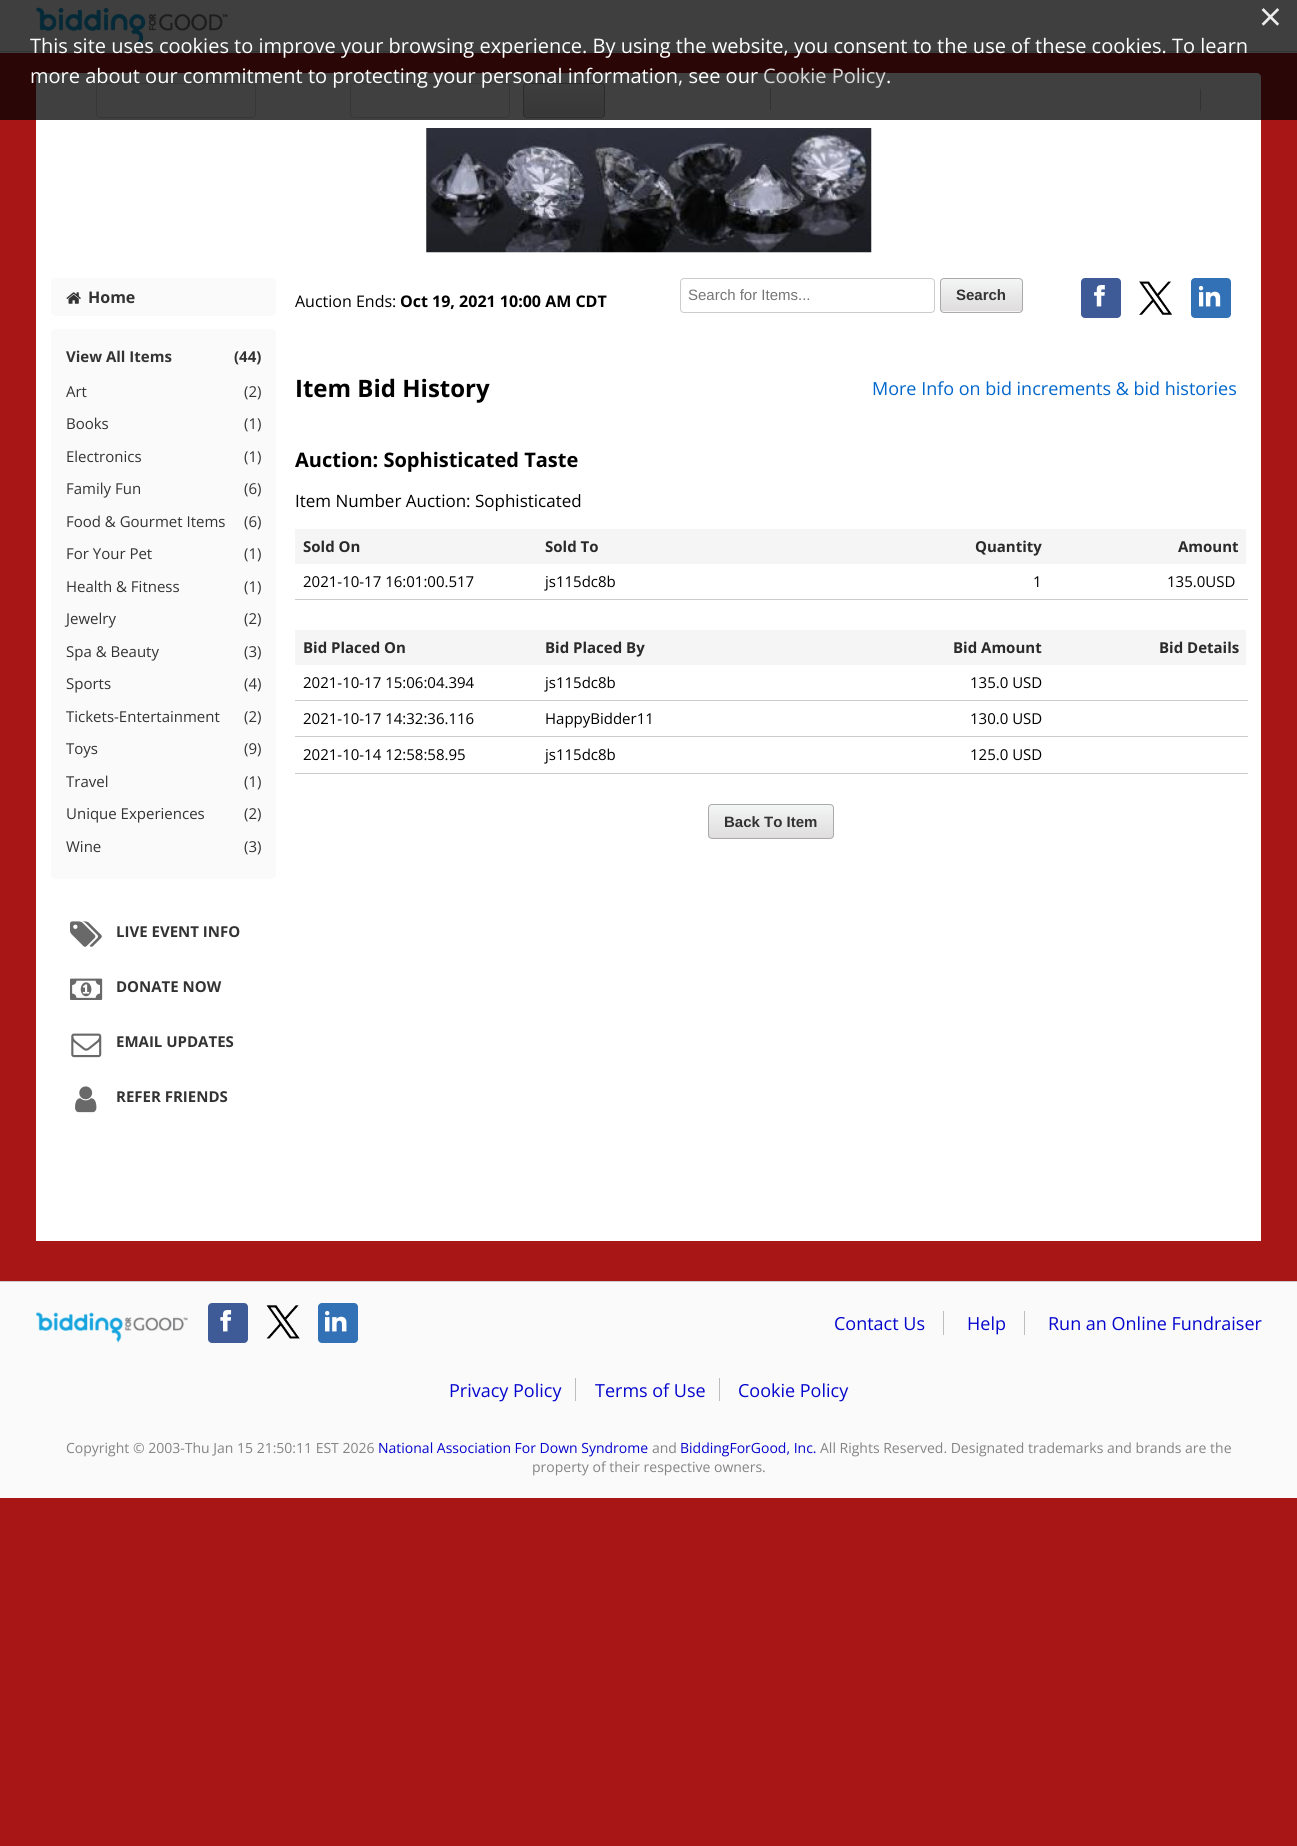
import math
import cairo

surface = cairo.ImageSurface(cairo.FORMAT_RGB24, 1297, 1846)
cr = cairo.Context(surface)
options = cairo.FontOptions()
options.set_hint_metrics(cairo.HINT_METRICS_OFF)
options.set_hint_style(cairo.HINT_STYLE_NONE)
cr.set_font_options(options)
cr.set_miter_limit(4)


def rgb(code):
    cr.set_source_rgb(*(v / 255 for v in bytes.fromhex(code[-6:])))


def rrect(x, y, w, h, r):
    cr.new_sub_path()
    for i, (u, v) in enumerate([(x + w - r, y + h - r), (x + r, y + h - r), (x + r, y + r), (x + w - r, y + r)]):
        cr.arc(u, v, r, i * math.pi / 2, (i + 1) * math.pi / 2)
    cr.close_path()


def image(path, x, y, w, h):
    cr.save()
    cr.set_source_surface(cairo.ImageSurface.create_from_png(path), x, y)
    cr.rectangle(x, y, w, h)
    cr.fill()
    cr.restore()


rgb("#a81616")
cr.paint()
rgb("#fafafa")
cr.rectangle(0, 0, 1297, 53)
cr.fill()
rgb("#cccccc")
cr.rectangle(0, 51, 1297, 1)
cr.fill()
image("img/1.png", 36, 7, 192, 38)
rgb("#ffffff")
cr.new_path()
cr.move_to(40, 73)
cr.line_to(1257, 73)
cr.curve_to(1259, 73, 1261, 75, 1261, 77)
cr.line_to(1261, 128)
cr.line_to(36, 128)
cr.line_to(36, 77)
cr.curve_to(36, 75, 38, 73, 40, 73)
cr.close_path()
cr.fill()
rrect(96.5, 83.5, 159, 34, 3.5)
rgb("#dddddd")
cr.set_line_width(1)
cr.stroke()
rrect(350.5, 83.5, 159, 34, 3.5)
cr.stroke()
cr.save()
rrect(523, 83, 82, 35, 4)
cr.clip()
gradient = cairo.LinearGradient(564, 84, 564, 116)
gradient.add_color_stop_rgba(0, 0.957, 0.961, 0.961, 1)
gradient.add_color_stop_rgba(1, 0.875, 0.867, 0.867, 1)
cr.set_source(gradient)
cr.rectangle(523, 84, 82, 32)
cr.fill()
gradient = cairo.LinearGradient(564, 116, 564, 149)
gradient.add_color_stop_rgba(0, 0.957, 0.961, 0.961, 1)
gradient.add_color_stop_rgba(1, 0.875, 0.867, 0.867, 1)
cr.set_source(gradient)
cr.rectangle(523, 116, 82, 2)
cr.fill()
cr.restore()
rrect(523.5, 83.5, 81, 34, 3.5)
rgb("#aaaaaa")
cr.stroke()
for x, y, w, h, color in [
    (770, 88, 1, 22, "#cccccc"),
    (1200, 89, 1, 22, "#cccccc"),
    (36, 128, 1225, 1113, "#ffffff"),
]:
    rgb(color)
    cr.rectangle(x, y, w, h)
    cr.fill()
image("img/2.png", 426, 128, 446, 125)
cr.set_source_rgba(0, 0, 0, 0.75)
cr.rectangle(0, 0, 1297, 120)
cr.fill()
rgb("#fafafa")
rrect(51, 278, 225, 38, 5)
cr.fill()
image("img/3.png", 66, 292, 15, 12)
rrect(51, 329, 225, 550, 5)
cr.fill()
image("img/4.png", 70, 921, 32, 26)
image("img/5.png", 70, 978, 33, 22)
image("img/6.png", 71, 1033, 31, 25)
image("img/7.png", 75, 1086, 22, 27)
rrect(680.5, 278.5, 254, 34, 3.5)
rgb("#cccccc")
cr.stroke()
cr.save()
rrect(940, 278, 83, 35, 4)
cr.clip()
gradient = cairo.LinearGradient(981, 279, 981, 311)
gradient.add_color_stop_rgba(0, 0.957, 0.961, 0.961, 1)
gradient.add_color_stop_rgba(1, 0.875, 0.867, 0.867, 1)
cr.set_source(gradient)
cr.rectangle(940, 279, 83, 32)
cr.fill()
gradient = cairo.LinearGradient(981, 311, 981, 344)
gradient.add_color_stop_rgba(0, 0.957, 0.961, 0.961, 1)
gradient.add_color_stop_rgba(1, 0.875, 0.867, 0.867, 1)
cr.set_source(gradient)
cr.rectangle(940, 311, 83, 2)
cr.fill()
cr.restore()
rrect(940.5, 278.5, 82, 34, 3.5)
rgb("#aaaaaa")
cr.stroke()
rgb("#3e5b98")
rrect(1081, 278, 40, 40, 4)
cr.fill()
image("img/8.png", 1094, 285, 11, 22)
image("img/9.png", 1139, 281, 33, 34)
rgb("#3371b7")
rrect(1191, 278, 40, 40, 4)
cr.fill()
image("img/10.png", 1199, 285, 22, 22)
for x, y, w, h, color in [
    (295, 529, 951, 35, "#f5f5f5"),
    (295, 599, 953, 1, "#cccccc"),
    (295, 630, 951, 35, "#f5f5f5"),
    (295, 700, 953, 1, "#cccccc"),
    (295, 736, 953, 1, "#cccccc"),
    (295, 773, 953, 1, "#cccccc"),
]:
    rgb(color)
    cr.rectangle(x, y, w, h)
    cr.fill()
cr.save()
rrect(708, 804, 126, 35, 4)
cr.clip()
gradient = cairo.LinearGradient(771, 805, 771, 838)
gradient.add_color_stop_rgba(0, 0.957, 0.961, 0.961, 1)
gradient.add_color_stop_rgba(1, 0.875, 0.867, 0.867, 1)
cr.set_source(gradient)
cr.rectangle(708, 805, 126, 33)
cr.fill()
cr.restore()
rrect(708.5, 804.5, 125, 34, 3.5)
rgb("#aaaaaa")
cr.stroke()
rgb("#fafafa")
cr.rectangle(0, 1282, 1297, 216)
cr.fill()
rgb("#cccccc")
cr.rectangle(0, 1281, 1297, 1)
cr.fill()
image("img/11.png", 36, 1312, 152, 31)
rgb("#3e5b98")
rrect(208, 1303, 40, 40, 4)
cr.fill()
image("img/12.png", 220, 1310, 12, 22)
image("img/13.png", 266, 1305, 34, 34)
rgb("#3371b7")
rrect(318, 1303, 40, 40, 4)
cr.fill()
image("img/14.png", 325, 1310, 22, 22)
for x, y, w, h, color in [
    (943, 1311, 1, 24, "#bebebe"),
    (1024, 1311, 1, 24, "#bebebe"),
    (575, 1378, 1, 23, "#bebebe"),
    (719, 1378, 1, 23, "#bebebe"),
]:
    rgb(color)
    cr.rectangle(x, y, w, h)
    cr.fill()
cr.select_font_face("Open Sans")
cr.set_font_size(40)
rgb("#ececec")
cr.move_to(1259, 31)
cr.show_text("×")
cr.set_font_size(20)
rgb("#ffffff")
cr.move_to(30, 53)
cr.show_text("This site uses cookies to improve your browsing experience. By using the website, you consent to the use of these cookies. To learn")
cr.move_to(30, 83)
cr.show_text("more about our commitment to protecting your personal information, see our")
rgb("#d8d6d6")
cr.move_to(763, 83)
cr.show_text("Cookie Policy")
rgb("#ffffff")
cr.move_to(886, 83)
cr.show_text(".")
cr.select_font_face("Open Sans", cairo.FONT_SLANT_NORMAL, cairo.FONT_WEIGHT_BOLD)
cr.set_font_size(16)
rgb("#333333")
cr.move_to(88, 303)
cr.show_text("Home")
cr.set_font_size(15)
cr.move_to(66, 362)
cr.show_text("View All Items")
cr.move_to(234, 362)
cr.show_text("(44)")
cr.select_font_face("Open Sans")
for x, y, s in [
    (66, 397, "Art"),
    (244, 397, "(2)"),
    (66, 429, "Books"),
    (244, 429, "(1)"),
    (66, 462, "Electronics"),
    (244, 462, "(1)"),
    (66, 494, "Family Fun"),
    (244, 494, "(6)"),
    (66, 527, "Food & Gourmet Items"),
    (244, 527, "(6)"),
    (66, 559, "For Your Pet"),
    (244, 559, "(1)"),
    (66, 592, "Health & Fitness"),
    (244, 592, "(1)"),
    (66, 624, "Jewelry"),
    (244, 624, "(2)"),
    (66, 657, "Spa & Beauty"),
    (244, 657, "(3)"),
    (66, 689, "Sports"),
    (244, 689, "(4)"),
    (66, 722, "Tickets-Entertainment"),
    (244, 722, "(2)"),
    (66, 754, "Toys"),
    (244, 754, "(9)"),
    (66, 787, "Travel"),
    (244, 787, "(1)"),
    (66, 819, "Unique Experiences"),
    (244, 819, "(2)"),
    (66, 852, "Wine"),
    (244, 852, "(3)"),
]:
    cr.move_to(x, y)
    cr.show_text(s)
cr.select_font_face("Open Sans", cairo.FONT_SLANT_NORMAL, cairo.FONT_WEIGHT_BOLD)
for x, y, s in [
    (116, 937, "LIVE EVENT INFO"),
    (116, 992, "DONATE NOW"),
    (116, 1047, "EMAIL UPDATES"),
    (116, 1102, "REFER FRIENDS"),
]:
    cr.move_to(x, y)
    cr.show_text(s)
cr.select_font_face("Open Sans")
cr.set_font_size(16)
rgb("#000000")
cr.move_to(295, 307)
cr.show_text("Auction Ends:")
cr.select_font_face("Open Sans", cairo.FONT_SLANT_NORMAL, cairo.FONT_WEIGHT_BOLD)
cr.move_to(400, 307)
cr.show_text("Oct 19, 2021 10:00 AM CDT")
cr.select_font_face("Liberation Sans")
cr.set_font_size(15)
rgb("#757575")
cr.move_to(688, 300)
cr.show_text("Search for Items...")
cr.select_font_face("Liberation Sans", cairo.FONT_SLANT_NORMAL, cairo.FONT_WEIGHT_BOLD)
rgb("#333333")
cr.move_to(956, 300)
cr.show_text("Search")
cr.select_font_face("Open Sans", cairo.FONT_SLANT_NORMAL, cairo.FONT_WEIGHT_BOLD)
cr.set_font_size(24)
rgb("#000000")
cr.move_to(295, 397)
cr.show_text("Item Bid History")
cr.select_font_face("Open Sans")
cr.set_font_size(18)
rgb("#0066cc")
cr.move_to(872, 395)
cr.show_text("More Info on bid increments & bid histories")
cr.select_font_face("Open Sans", cairo.FONT_SLANT_NORMAL, cairo.FONT_WEIGHT_BOLD)
cr.set_font_size(20)
rgb("#000000")
cr.move_to(295, 467)
cr.show_text("Auction: Sophisticated Taste")
cr.select_font_face("Open Sans")
cr.set_font_size(17)
cr.move_to(295, 507)
cr.show_text("Item Number Auction: Sophisticated")
cr.select_font_face("Open Sans", cairo.FONT_SLANT_NORMAL, cairo.FONT_WEIGHT_BOLD)
cr.set_font_size(15)
rgb("#2a2a2a")
for x, y, s in [
    (303, 552, "Sold On"),
    (545, 552, "Sold To"),
    (975, 552, "Quantity"),
    (1178, 552, "Amount"),
]:
    cr.move_to(x, y)
    cr.show_text(s)
cr.select_font_face("Open Sans")
rgb("#000000")
for x, y, s in [
    (303, 587, "2021-10-17 16:01:00.517"),
    (545, 587, "js115dc8b"),
    (1033, 587, "1"),
    (1167, 587, "135.0USD"),
]:
    cr.move_to(x, y)
    cr.show_text(s)
cr.select_font_face("Open Sans", cairo.FONT_SLANT_NORMAL, cairo.FONT_WEIGHT_BOLD)
rgb("#2a2a2a")
for x, y, s in [
    (303, 653, "Bid Placed On"),
    (545, 653, "Bid Placed By"),
    (953, 653, "Bid Amount"),
    (1159, 653, "Bid Details"),
]:
    cr.move_to(x, y)
    cr.show_text(s)
cr.select_font_face("Open Sans")
rgb("#000000")
for x, y, s in [
    (303, 688, "2021-10-17 15:06:04.394"),
    (545, 688, "js115dc8b"),
    (970, 688, "135.0 USD"),
    (303, 724, "2021-10-17 14:32:36.116"),
    (545, 724, "HappyBidder11"),
    (970, 724, "130.0 USD"),
    (303, 760, "2021-10-14 12:58:58.95"),
    (545, 760, "js115dc8b"),
    (970, 760, "125.0 USD"),
]:
    cr.move_to(x, y)
    cr.show_text(s)
cr.select_font_face("Liberation Sans", cairo.FONT_SLANT_NORMAL, cairo.FONT_WEIGHT_BOLD)
rgb("#333333")
cr.move_to(724, 827)
cr.show_text("Back To Item")
cr.select_font_face("Open Sans")
cr.set_font_size(18)
rgb("#0505ce")
for x, y, s in [
    (834, 1330, "Contact Us"),
    (967, 1330, "Help"),
    (1048, 1330, "Run an Online Fundraiser"),
    (449, 1397, "Privacy Policy"),
    (595, 1397, "Terms of Use"),
    (738, 1397, "Cookie Policy"),
]:
    cr.move_to(x, y)
    cr.show_text(s)
cr.set_font_size(14)
rgb("#848484")
cr.move_to(66, 1453)
cr.show_text("Copyright © 2003-Thu Jan 15 21:50:11 EST 2026")
rgb("#0505ce")
cr.move_to(378, 1453)
cr.show_text("National Association For Down Syndrome")
rgb("#848484")
cr.move_to(652, 1453)
cr.show_text("and")
rgb("#0505ce")
cr.move_to(680, 1453)
cr.show_text("BiddingForGood, Inc.")
rgb("#848484")
cr.move_to(820, 1453)
cr.show_text("All Rights Reserved. Designated trademarks and brands are the")
cr.move_to(532, 1472)
cr.show_text("property of their respective owners.")
surface.write_to_png("page.png")
